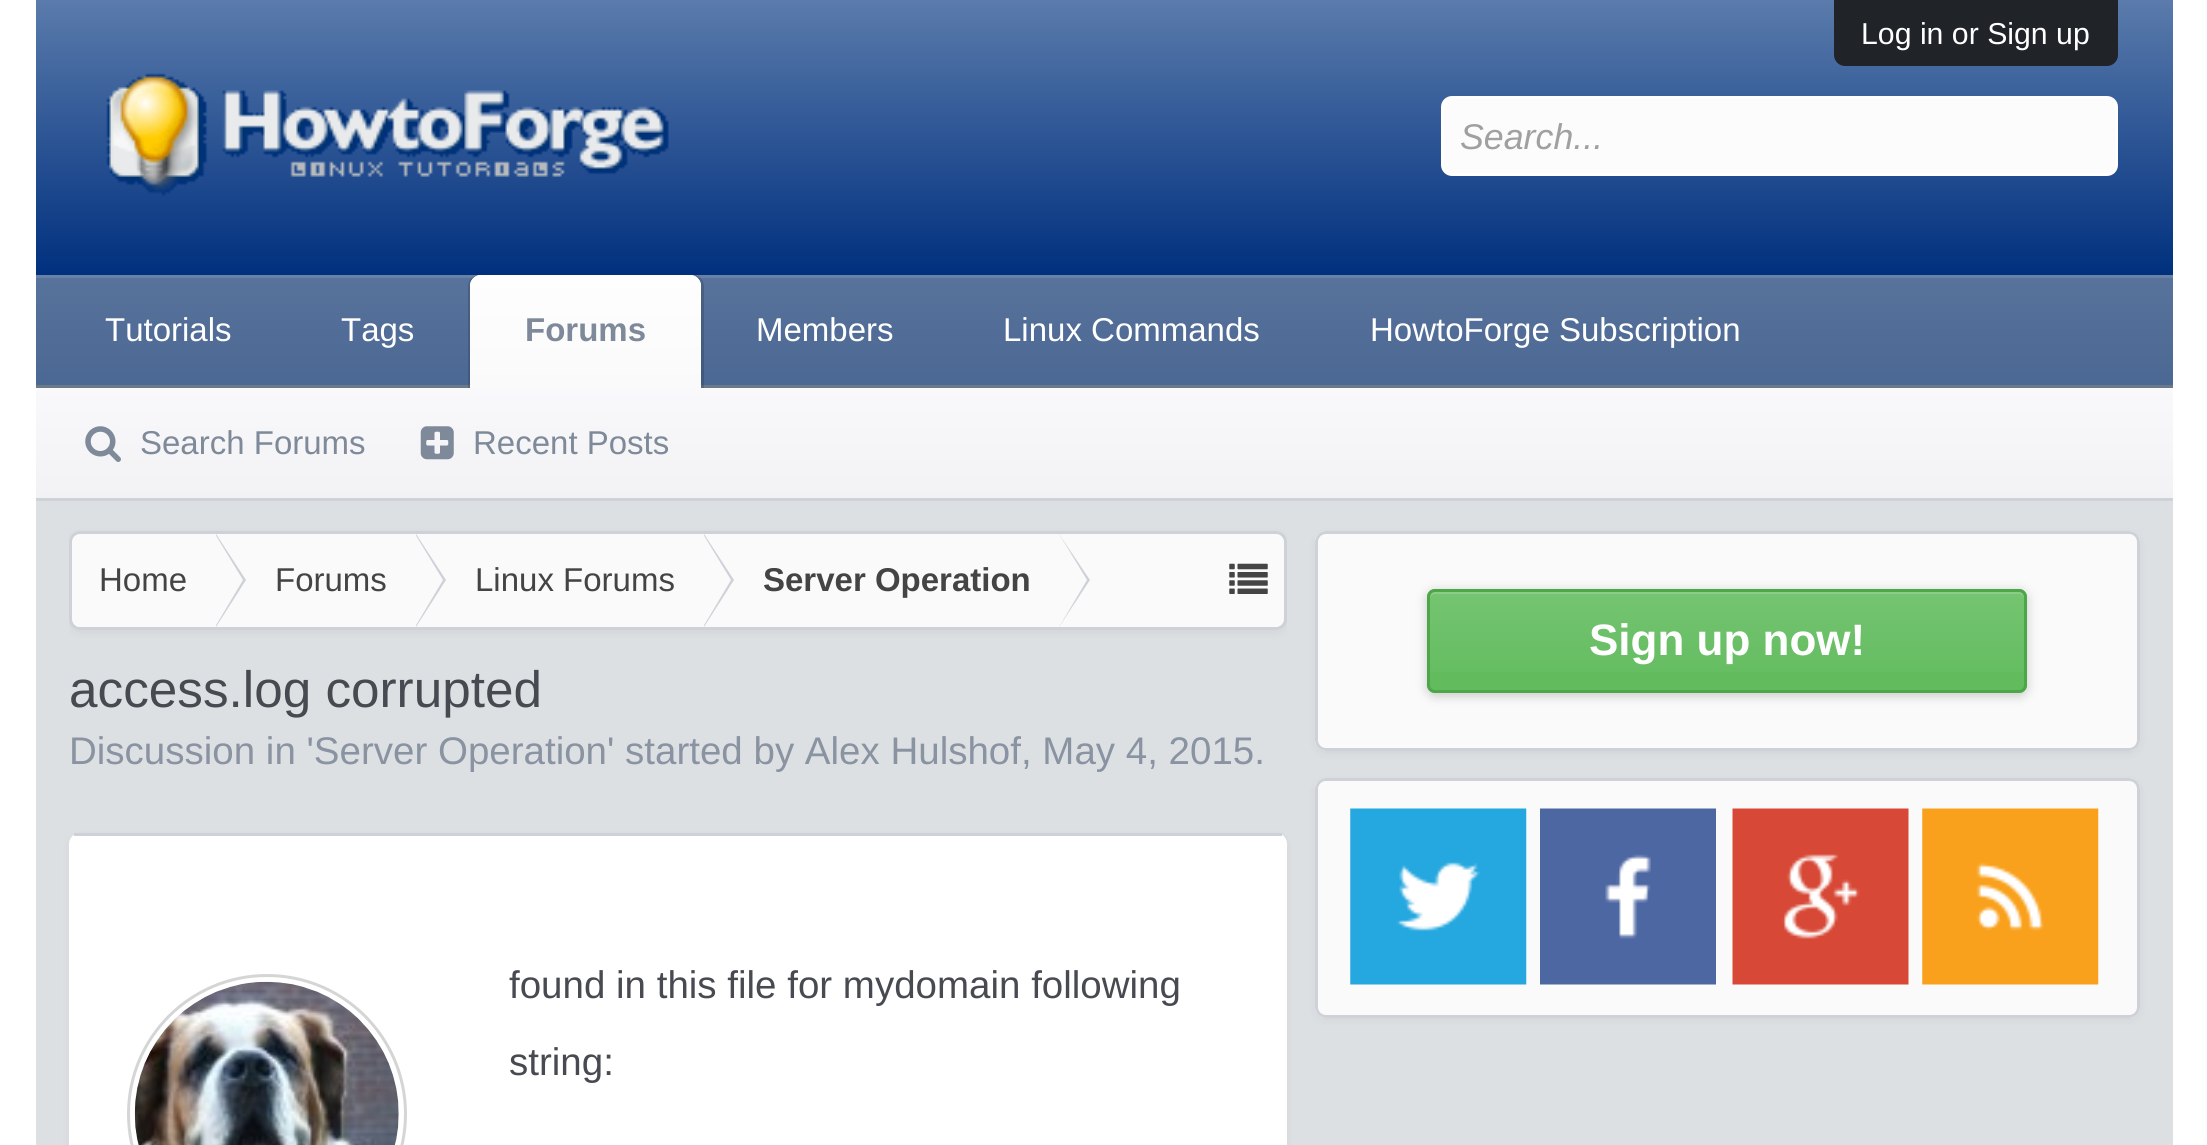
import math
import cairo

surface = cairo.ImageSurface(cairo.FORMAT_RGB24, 2207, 1145)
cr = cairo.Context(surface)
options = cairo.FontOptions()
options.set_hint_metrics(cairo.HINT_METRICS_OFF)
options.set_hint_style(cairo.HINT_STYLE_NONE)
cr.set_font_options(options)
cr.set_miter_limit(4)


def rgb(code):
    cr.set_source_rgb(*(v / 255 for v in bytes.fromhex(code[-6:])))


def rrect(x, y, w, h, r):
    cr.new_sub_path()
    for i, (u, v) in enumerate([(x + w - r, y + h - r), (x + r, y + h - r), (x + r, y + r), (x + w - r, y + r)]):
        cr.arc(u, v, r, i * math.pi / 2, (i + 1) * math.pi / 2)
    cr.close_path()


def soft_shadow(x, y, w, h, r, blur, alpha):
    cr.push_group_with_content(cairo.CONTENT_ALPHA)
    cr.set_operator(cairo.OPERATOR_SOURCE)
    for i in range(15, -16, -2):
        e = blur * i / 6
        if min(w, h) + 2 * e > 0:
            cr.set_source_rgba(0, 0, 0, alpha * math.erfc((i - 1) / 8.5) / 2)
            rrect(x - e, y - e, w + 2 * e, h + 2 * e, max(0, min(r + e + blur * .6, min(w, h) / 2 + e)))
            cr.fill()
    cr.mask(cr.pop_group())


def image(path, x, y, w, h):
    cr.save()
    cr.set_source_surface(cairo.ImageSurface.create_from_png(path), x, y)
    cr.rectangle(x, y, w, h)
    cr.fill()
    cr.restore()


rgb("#ffffff")
cr.paint()
gradient = cairo.LinearGradient(1104, 0, 1104, 275)
gradient.add_color_stop_rgba(0, 0.353, 0.482, 0.671, 1)
gradient.add_color_stop_rgba(1, 0, 0.188, 0.494, 1)
cr.set_source(gradient)
cr.rectangle(36, 0, 2137, 275)
cr.fill()
rgb("#202328")
cr.new_path()
cr.move_to(1834, 0)
cr.line_to(2118, 0)
cr.line_to(2118, 55)
cr.curve_to(2118, 61, 2113, 66, 2107, 66)
cr.line_to(1845, 66)
cr.curve_to(1839, 66, 1834, 61, 1834, 55)
cr.close_path()
cr.fill()
image("img/1.png", 106, 73, 563, 123)
rgb("#fcfcfc")
rrect(1442.5, 97.5, 674, 77, 9.5)
cr.fill_preserve()
rgb("#ffffff")
cr.set_line_width(3)
cr.stroke()
gradient = cairo.LinearGradient(1104, 275, 1104, 385)
gradient.add_color_stop_rgba(0, 0.345, 0.451, 0.608, 1)
gradient.add_color_stop_rgba(1, 0.294, 0.408, 0.58, 1)
cr.set_source(gradient)
cr.rectangle(36, 278, 2137, 107)
cr.fill()
rgb("#6981a5")
cr.rectangle(36, 275, 2137, 3)
cr.fill()
rgb("#6c7989")
cr.rectangle(36, 385, 2137, 3)
cr.fill()
cr.set_source_rgba(0, 0, 0, 0.15)
cr.new_path()
cr.move_to(479, 275)
cr.curve_to(473, 275, 468, 280, 468, 286)
cr.line_to(468, 388)
cr.line_to(699, 388)
cr.line_to(470, 388)
cr.line_to(470, 286)
cr.curve_to(470, 280, 475, 275, 481, 275)
cr.close_path()
cr.fill()
cr.new_path()
cr.move_to(473, 388)
cr.line_to(704, 388)
cr.line_to(704, 286)
cr.curve_to(704, 280, 699, 275, 693, 275)
cr.line_to(690, 275)
cr.curve_to(696, 275, 701, 280, 701, 286)
cr.line_to(701, 388)
cr.close_path()
cr.fill()
rgb("#fafafb")
cr.new_path()
cr.move_to(481, 275)
cr.line_to(690, 275)
cr.curve_to(696, 275, 701, 280, 701, 286)
cr.line_to(701, 388)
cr.line_to(470, 388)
cr.line_to(470, 286)
cr.curve_to(470, 280, 475, 275, 481, 275)
cr.close_path()
cr.fill()
gradient = cairo.LinearGradient(586, 275, 586, 388)
gradient.add_color_stop_rgba(0, 1, 1, 1, 0.8)
gradient.add_color_stop_rgba(1, 1, 1, 1, 0)
cr.set_source(gradient)
cr.new_path()
cr.move_to(481, 275)
cr.line_to(690, 275)
cr.curve_to(696, 275, 701, 280, 701, 286)
cr.line_to(701, 388)
cr.line_to(470, 388)
cr.line_to(470, 286)
cr.curve_to(470, 280, 475, 275, 481, 275)
cr.close_path()
cr.fill()
cr.set_source_rgba(1, 1, 1, 0.8)
cr.new_path()
cr.move_to(481, 278)
cr.line_to(690, 278)
cr.curve_to(696, 278, 701, 283, 701, 289)
cr.line_to(701, 286)
cr.curve_to(701, 280, 696, 275, 690, 275)
cr.line_to(481, 275)
cr.curve_to(475, 275, 470, 280, 470, 286)
cr.line_to(470, 289)
cr.curve_to(470, 283, 475, 278, 481, 278)
cr.close_path()
cr.fill()
gradient = cairo.LinearGradient(1104, 388, 1104, 498)
gradient.add_color_stop_rgba(0, 0.976, 0.976, 0.988, 1)
gradient.add_color_stop_rgba(1, 0.949, 0.949, 0.957, 1)
cr.set_source(gradient)
cr.rectangle(36, 388, 2137, 110)
cr.fill()
rgb("#ced2d8")
cr.rectangle(36, 498, 2137, 3)
cr.fill()
image("img/2.png", 85, 426, 36, 36)
image("img/3.png", 420, 426, 34, 34)
rgb("#dde0e3")
cr.rectangle(36, 501, 2137, 644)
cr.fill()
cr.save()
cr.rectangle(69, 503, 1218, 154)
cr.clip()
rgb("#000000")
soft_shadow(69, 534, 1218, 99, 11, 4, 0.05)
cr.restore()
rgb("#fafafb")
rrect(70.5, 532.5, 1215, 96, 9.5)
cr.fill_preserve()
rgb("#ced2d8")
cr.stroke()
cr.save()
rrect(72, 534, 1212, 93, 8)
cr.clip()
rgb("#fafafb")
cr.new_path()
cr.move_to(86, 534)
cr.line_to(215, 534)
cr.line_to(215, 630)
cr.line_to(86, 630)
cr.curve_to(78.5, 630, 72, 623.5, 72, 616)
cr.line_to(72, 548)
cr.curve_to(72, 540.5, 78.5, 534, 86, 534)
cr.close_path()
cr.fill()
cr.restore()
cr.new_path()
cr.move_to(216, 627)
cr.line_to(216, 534)
cr.line_to(246, 580)
cr.close_path()
cr.fill()
rgb("#fafafb")
cr.new_path()
cr.move_to(215, 534)
cr.line_to(243, 580)
cr.line_to(215, 627)
cr.line_to(213, 627)
cr.line_to(213, 534)
cr.close_path()
cr.fill()
rgb("#ced2d8")
cr.new_path()
cr.move_to(416, 627)
cr.line_to(416, 534)
cr.line_to(446, 580)
cr.close_path()
cr.fill()
rgb("#fafafb")
cr.new_path()
cr.move_to(415, 534)
cr.line_to(443, 580)
cr.line_to(415, 627)
cr.line_to(413, 627)
cr.line_to(413, 534)
cr.close_path()
cr.fill()
rgb("#ced2d8")
cr.new_path()
cr.move_to(704, 627)
cr.line_to(704, 534)
cr.line_to(734, 580)
cr.close_path()
cr.fill()
rgb("#fafafb")
cr.new_path()
cr.move_to(703, 534)
cr.line_to(731, 580)
cr.line_to(703, 627)
cr.line_to(701, 627)
cr.line_to(701, 534)
cr.close_path()
cr.fill()
rgb("#ced2d8")
cr.new_path()
cr.move_to(1059, 627)
cr.line_to(1059, 534)
cr.line_to(1090, 580)
cr.close_path()
cr.fill()
rgb("#fafafb")
cr.new_path()
cr.move_to(1059, 534)
cr.line_to(1087, 580)
cr.line_to(1059, 627)
cr.line_to(1057, 627)
cr.line_to(1057, 534)
cr.close_path()
cr.fill()
image("img/4.png", 1229, 563, 39, 31)
rgb("#000000")
soft_shadow(69, 836, 1218, 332, 11, 4, 0.05)
rgb("#ffffff")
rrect(69, 833, 1218, 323, 11)
cr.fill()
rgb("#ced2d8")
cr.rectangle(74, 833, 1208, 3)
cr.fill()
cr.arc(267, 1114, 138.5, 0, 2 * math.pi)
rgb("#d5d5d5")
cr.stroke()
image("img/5.png", 134, 981, 265, 164)
rgb("#000000")
soft_shadow(1315, 534, 825, 220, 11, 4, 0.05)
rgb("#fafafb")
rrect(1315, 531, 825, 220, 11)
cr.fill()
image("img/6.png", 1315, 534, 3, 6)
rrect(1316.5, 532.5, 822, 217, 9.5)
rgb("#ced2d8")
cr.stroke()
rgb("#000000")
soft_shadow(1427, 591, 600, 105, 8, 5.5, 0.2)
rgb("#62bc5e")
rrect(1427, 589, 600, 104, 8)
cr.fill()
cr.save()
rrect(1427, 589, 600, 104, 8)
cr.clip()
gradient = cairo.LinearGradient(1727, 591, 1727, 690)
gradient.add_color_stop_rgba(0, 1, 1, 1, 0.12)
gradient.add_color_stop_rgba(1, 1, 1, 1, 0)
cr.set_source(gradient)
cr.rectangle(1427, 591, 600, 81)
cr.fill()
cr.restore()
rgb("#89cd86")
cr.new_path()
cr.move_to(1436, 594)
cr.line_to(2018, 594)
cr.curve_to(2022, 594, 2024, 596, 2024, 600)
cr.curve_to(2024, 596, 2023, 591, 2018, 591)
cr.line_to(1436, 591)
cr.curve_to(1431, 591, 1430, 596, 1430, 600)
cr.curve_to(1430, 596, 1432, 594, 1436, 594)
cr.close_path()
cr.fill()
rrect(1428.5, 590.5, 597, 101, 6.5)
rgb("#4da749")
cr.stroke()
rgb("#000000")
soft_shadow(1315, 781, 825, 239, 11, 4, 0.05)
rgb("#fafafb")
rrect(1315, 778, 825, 240, 11)
cr.fill()
image("img/7.png", 1315, 783, 2, 4)
rrect(1316.5, 779.5, 822, 237, 9.5)
rgb("#ced2d8")
cr.stroke()
image("img/8.png", 1350, 808, 177, 177)
image("img/9.png", 1540, 808, 176, 177)
image("img/10.png", 1732, 808, 177, 177)
image("img/11.png", 1922, 808, 177, 177)
cr.select_font_face("Liberation Sans")
cr.set_font_size(30.25)
rgb("#ffffff")
cr.move_to(1861, 44)
cr.show_text("Log in or Sign up")
cr.select_font_face("Liberation Sans", cairo.FONT_SLANT_ITALIC)
cr.set_font_size(35.75)
rgb("#a0a0a0")
cr.move_to(1460, 149)
cr.show_text("Search...")
cr.select_font_face("Liberation Sans")
cr.set_font_size(33)
rgb("#ffffff")
for x, y, s in [
    (105, 341, "Tutorials"),
    (756, 341, "Members"),
    (1003, 341, "Linux Commands"),
    (1370, 341, "HowtoForge Subscription"),
]:
    cr.move_to(x, y)
    cr.show_text(s)
cr.select_font_face("Liberation Sans", cairo.FONT_SLANT_NORMAL, cairo.FONT_WEIGHT_BOLD)
rgb("#7e8a99")
cr.move_to(525, 341)
cr.show_text("Forums")
cr.select_font_face("Liberation Sans")
cr.move_to(140, 454)
cr.show_text("Search Forums")
cr.move_to(473, 454)
cr.show_text("Recent Posts")
rgb("#ffffff")
cr.move_to(341, 341)
cr.show_text("Tags")
rgb("#444444")
for x, y, s in [
    (99, 591, "Home"),
    (275, 591, "Forums"),
    (475, 591, "Linux Forums"),
]:
    cr.move_to(x, y)
    cr.show_text(s)
cr.select_font_face("Liberation Sans", cairo.FONT_SLANT_NORMAL, cairo.FONT_WEIGHT_BOLD)
cr.move_to(763, 591)
cr.show_text("Server Operation")
cr.select_font_face("Liberation Sans")
cr.set_font_size(51.25)
rgb("#474b51")
cr.move_to(69, 707)
cr.show_text("access.log corrupted")
cr.set_font_size(38.5)
rgb("#8a93a2")
cr.move_to(69, 764)
cr.show_text("Discussion in 'Server Operation' started by Alex Hulshof, May 4, 2015.")
rgb("#474b51")
cr.move_to(509, 998)
cr.show_text("found in this file for mydomain following")
cr.move_to(509, 1075)
cr.show_text("string:")
cr.select_font_face("Liberation Sans", cairo.FONT_SLANT_NORMAL, cairo.FONT_WEIGHT_BOLD)
cr.set_font_size(44)
rgb("#ffffff")
cr.move_to(1589, 655)
cr.show_text("Sign up now!")
surface.write_to_png("page.png")
